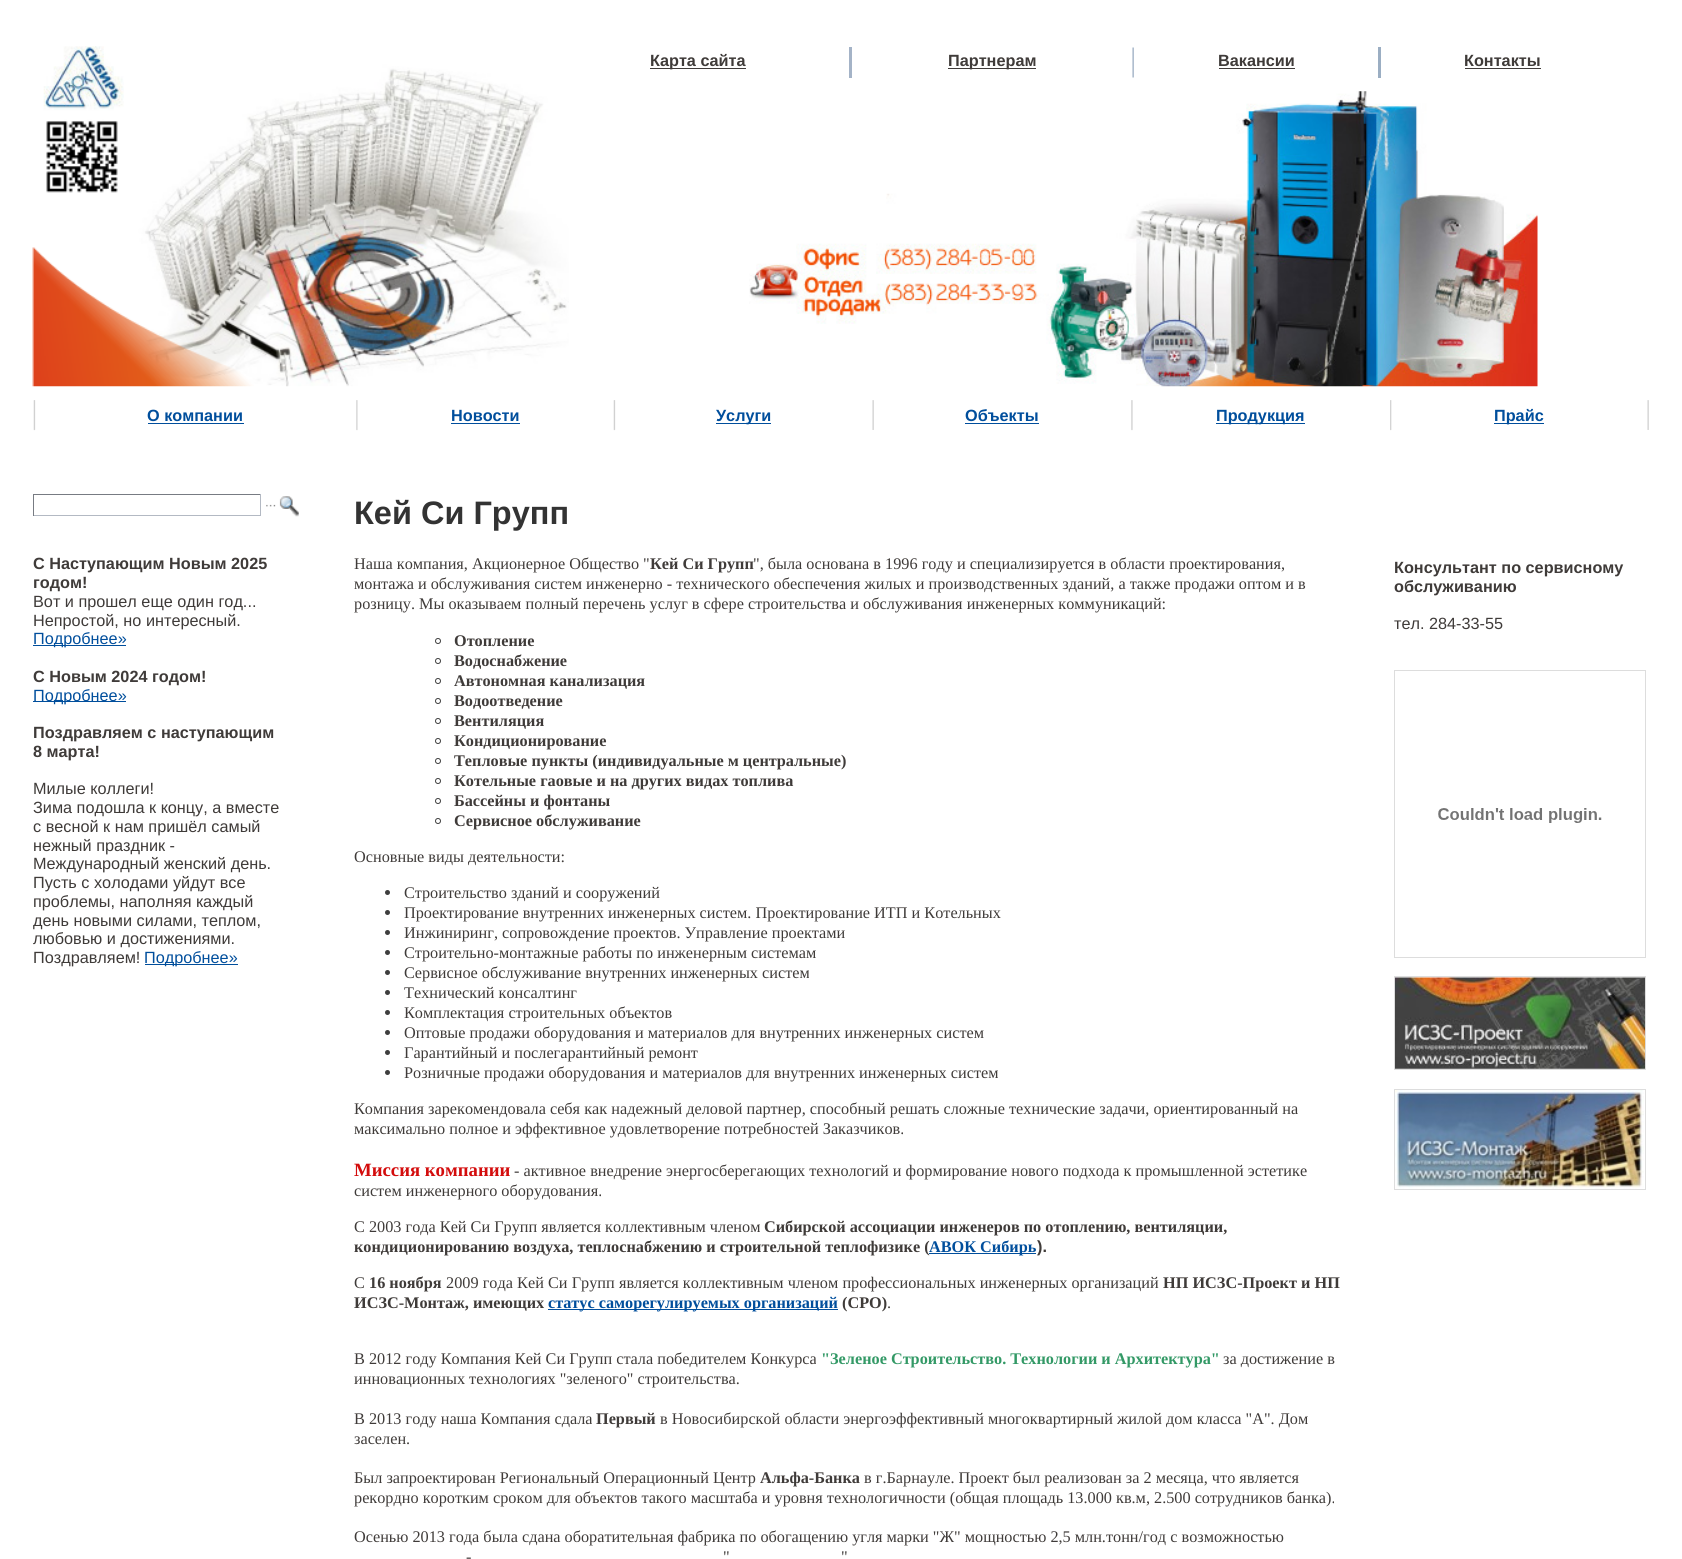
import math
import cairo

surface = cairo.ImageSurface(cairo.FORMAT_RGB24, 1682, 1559)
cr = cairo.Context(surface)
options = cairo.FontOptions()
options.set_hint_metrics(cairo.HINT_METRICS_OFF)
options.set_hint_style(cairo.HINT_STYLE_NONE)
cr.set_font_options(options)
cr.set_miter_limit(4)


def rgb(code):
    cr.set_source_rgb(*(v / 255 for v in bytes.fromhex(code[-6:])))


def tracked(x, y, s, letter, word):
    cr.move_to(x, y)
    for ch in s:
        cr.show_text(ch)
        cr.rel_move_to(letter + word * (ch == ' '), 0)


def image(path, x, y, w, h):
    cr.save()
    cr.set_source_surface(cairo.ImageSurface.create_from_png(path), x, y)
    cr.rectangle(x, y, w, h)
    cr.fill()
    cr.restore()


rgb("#ffffff")
cr.paint()
image("img/1.png", 32, 46, 537, 341)
for x, y, w, h, color in [
    (650, 68, 96, 1, "#3f3b39"),
    (849, 47, 3, 31, "#a4b3c7"),
    (948, 68, 88, 1, "#3f3b39"),
]:
    rgb(color)
    cr.rectangle(x, y, w, h)
    cr.fill()
image("img/2.png", 1132, 47, 2, 31)
for x, y, w, h, color in [
    (1219, 68, 76, 1, "#3f3b39"),
    (1378, 47, 3, 31, "#9baec3"),
    (1465, 68, 76, 1, "#3f3b39"),
]:
    rgb(color)
    cr.rectangle(x, y, w, h)
    cr.fill()
image("img/3.png", 749, 91, 789, 296)
image("img/4.png", 33, 400, 3, 31)
rgb("#004e9c")
cr.rectangle(148, 423, 96, 1)
cr.fill()
image("img/5.png", 356, 400, 2, 31)
cr.rectangle(451, 423, 69, 1)
cr.fill()
image("img/4.png", 613, 400, 3, 31)
cr.rectangle(716, 423, 55, 1)
cr.fill()
image("img/6.png", 872, 400, 2, 30)
cr.rectangle(965, 423, 74, 1)
cr.fill()
image("img/7.png", 1131, 400, 2, 31)
cr.rectangle(1216, 423, 89, 1)
cr.fill()
image("img/8.png", 1390, 400, 2, 31)
cr.rectangle(1494, 423, 50, 1)
cr.fill()
image("img/6.png", 1647, 400, 2, 30)
for x, y, w, h, color in [
    (33, 494, 228, 1, "#777b82"),
    (260, 494, 1, 22, "#b3b9c3"),
    (33, 515, 228, 1, "#b3b9c3"),
    (33, 494, 1, 22, "#777b82"),
]:
    rgb(color)
    cr.rectangle(x, y, w, h)
    cr.fill()
image("img/9.png", 266, 496, 33, 21)
for x, y, w, h, color in [
    (33, 645, 93, 1, "#004e9c"),
    (33, 701, 93, 1, "#004e9c"),
    (145, 964, 93, 1, "#004e9c"),
]:
    rgb(color)
    cr.rectangle(x, y, w, h)
    cr.fill()
cr.arc(438, 641, 2.5, 0, 2 * math.pi)
rgb("#3e3e3e")
cr.set_line_width(1)
cr.stroke()
cr.arc(438, 661, 2.5, 0, 2 * math.pi)
cr.stroke()
cr.arc(438, 681, 2.5, 0, 2 * math.pi)
cr.stroke()
cr.arc(438, 701, 2.5, 0, 2 * math.pi)
cr.stroke()
cr.arc(438, 721, 2.5, 0, 2 * math.pi)
cr.stroke()
cr.arc(438, 741, 2.5, 0, 2 * math.pi)
cr.stroke()
cr.arc(438, 761, 2.5, 0, 2 * math.pi)
cr.stroke()
cr.arc(438, 781, 2.5, 0, 2 * math.pi)
cr.stroke()
cr.arc(438, 801, 2.5, 0, 2 * math.pi)
cr.stroke()
cr.arc(438, 821, 2.5, 0, 2 * math.pi)
cr.stroke()
cr.arc(387.5, 892.5, 2.5, 0, 2 * math.pi)
cr.fill()
cr.arc(387.5, 912.5, 2.5, 0, 2 * math.pi)
cr.fill()
cr.arc(387.5, 932.5, 2.5, 0, 2 * math.pi)
cr.fill()
cr.arc(387.5, 952.5, 2.5, 0, 2 * math.pi)
cr.fill()
cr.arc(387.5, 972.5, 2.5, 0, 2 * math.pi)
cr.fill()
cr.arc(387.5, 992.5, 2.5, 0, 2 * math.pi)
cr.fill()
cr.arc(387.5, 1012.5, 2.5, 0, 2 * math.pi)
cr.fill()
cr.arc(387.5, 1032.5, 2.5, 0, 2 * math.pi)
cr.fill()
cr.arc(387.5, 1052.5, 2.5, 0, 2 * math.pi)
cr.fill()
cr.arc(387.5, 1072.5, 2.5, 0, 2 * math.pi)
cr.fill()
rgb("#004e9c")
cr.rectangle(929, 1253, 107, 1)
cr.fill()
cr.rectangle(548, 1309, 290, 1)
cr.fill()
cr.rectangle(1394.5, 670.5, 251, 287)
rgb("#dddddd")
cr.stroke()
image("img/10.png", 1438, 808, 164, 15)
cr.rectangle(1394.5, 976.5, 251, 93)
cr.stroke()
image("img/11.png", 1395, 977, 250, 92)
cr.rectangle(1394.5, 1089.5, 251, 100)
cr.stroke()
image("img/12.png", 1395, 1090, 249, 99)
cr.select_font_face("Liberation Sans", cairo.FONT_SLANT_NORMAL, cairo.FONT_WEIGHT_BOLD)
cr.set_font_size(16.25)
rgb("#3f3b39")
for x, y, s in [
    (650, 66, "Карта сайта"),
    (948, 66, "Партнерам"),
    (1218, 66, "Вакансии"),
    (1464, 66, "Контакты"),
]:
    cr.move_to(x, y)
    cr.show_text(s)
rgb("#004e9c")
for x, y, s in [
    (147, 421, "О компании"),
    (451, 421, "Новости"),
    (716, 421, "Услуги"),
    (965, 421, "Объекты"),
    (1216, 421, "Продукция"),
    (1494, 421, "Прайс"),
]:
    cr.move_to(x, y)
    cr.show_text(s)
cr.set_font_size(32.5)
rgb("#333333")
cr.move_to(354, 524)
cr.show_text("Кей Си Групп")
cr.set_font_size(16.25)
rgb("#3f3b39")
cr.move_to(33, 569)
cr.show_text("С Наступающим Новым 2025")
cr.move_to(33, 588)
cr.show_text("годом!")
cr.select_font_face("Liberation Sans")
cr.move_to(33, 607)
cr.show_text("Вот и прошел еще один год...")
cr.move_to(33, 626)
cr.show_text("Непростой, но интересный.")
rgb("#004e9c")
cr.move_to(33, 644)
cr.show_text("Подробнее»")
cr.select_font_face("Liberation Sans", cairo.FONT_SLANT_NORMAL, cairo.FONT_WEIGHT_BOLD)
rgb("#3f3b39")
cr.move_to(33, 682)
cr.show_text("С Новым 2024 годом!")
cr.select_font_face("Liberation Sans")
rgb("#004e9c")
cr.move_to(33, 701)
cr.show_text("Подробнее»")
cr.select_font_face("Liberation Sans", cairo.FONT_SLANT_NORMAL, cairo.FONT_WEIGHT_BOLD)
rgb("#3f3b39")
cr.move_to(33, 738)
cr.show_text("Поздравляем с наступающим")
cr.move_to(33, 757)
cr.show_text("8 марта!")
cr.select_font_face("Liberation Sans")
for x, y, s in [
    (33, 794, "Милые коллеги!"),
    (33, 813, "Зима подошла к концу, а вместе"),
    (33, 832, "с весной к нам пришёл самый"),
    (33, 851, "нежный праздник -"),
    (33, 869, "Международный женский день."),
    (33, 888, "Пусть с холодами уйдут все"),
    (33, 907, "проблемы, наполняя каждый"),
    (33, 926, "день новыми силами, теплом,"),
    (33, 944, "любовью и достижениями."),
    (33, 963, "Поздравляем!"),
]:
    cr.move_to(x, y)
    cr.show_text(s)
rgb("#004e9c")
cr.move_to(144, 963)
cr.show_text("Подробнее»")
cr.select_font_face("Liberation Serif")
rgb("#3f3b39")
cr.move_to(354, 569)
cr.show_text("Наша компания, Акционерное Общество \"")
cr.select_font_face("Liberation Serif", cairo.FONT_SLANT_NORMAL, cairo.FONT_WEIGHT_BOLD)
cr.move_to(650, 569)
cr.show_text("Кей Си Групп")
cr.select_font_face("Liberation Serif")
for x, y, s in [
    (753, 569, "\", была основана в 1996 году и специализируется в области проектирования,"),
    (354, 589, "монтажа и обслуживания систем инженерно - технического обеспечения жилых и производственных зданий, а также продажи оптом и в"),
    (354, 609, "розницу. Мы оказываем полный перечень услуг в сфере строительства и обслуживания инженерных коммуникаций:"),
]:
    cr.move_to(x, y)
    cr.show_text(s)
cr.select_font_face("Liberation Serif", cairo.FONT_SLANT_NORMAL, cairo.FONT_WEIGHT_BOLD)
for x, y, s in [
    (454, 646, "Отопление"),
    (454, 666, "Водоснабжение"),
    (454, 686, "Автономная канализация"),
    (454, 706, "Водоотведение"),
    (454, 726, "Вентиляция"),
    (454, 746, "Кондиционирование"),
    (454, 766, "Тепловые пункты (индивидуальные м центральные)"),
    (454, 786, "Котельные гаовые и на других видах топлива"),
    (454, 806, "Бассейны и фонтаны"),
    (454, 826, "Сервисное обслуживание"),
]:
    cr.move_to(x, y)
    cr.show_text(s)
cr.select_font_face("Liberation Serif")
for x, y, s in [
    (354, 862, "Основные виды деятельности:"),
    (404, 898, "Строительство зданий и сооружений"),
    (404, 918, "Проектирование внутренних инженерных систем. Проектирование ИТП и Котельных"),
    (404, 938, "Инжиниринг, сопровождение проектов. Управление проектами"),
    (404, 958, "Строительно-монтажные работы по инженерным системам"),
    (404, 978, "Сервисное обслуживание внутренних инженерных систем"),
    (404, 998, "Технический консалтинг"),
    (404, 1018, "Комплектация строительных объектов"),
    (404, 1038, "Оптовые продажи оборудования и материалов для внутренних инженерных систем"),
    (404, 1058, "Гарантийный и послегарантийный ремонт"),
    (404, 1078, "Розничные продажи оборудования и материалов для внутренних инженерных систем"),
    (354, 1114, "Компания зарекомендовала себя как надежный деловой партнер, способный решать сложные технические задачи, ориентированный на"),
    (354, 1134, "максимально полное и эффективное удовлетворение потребностей Заказчиков."),
]:
    cr.move_to(x, y)
    cr.show_text(s)
cr.select_font_face("Liberation Serif", cairo.FONT_SLANT_NORMAL, cairo.FONT_WEIGHT_BOLD)
cr.set_font_size(18.75)
rgb("#d30c0c")
cr.move_to(354, 1176)
cr.show_text("Миссия компании")
cr.select_font_face("Liberation Serif")
cr.set_font_size(16.25)
rgb("#3f3b39")
for x, y, s in [
    (514, 1176, "- активное внедрение энергосберегающих технологий и формирование нового подхода к промышленной эстетике"),
    (354, 1196, "систем инженерного оборудования."),
    (354, 1232, "С 2003 года Кей Си Групп является коллективным членом"),
]:
    cr.move_to(x, y)
    cr.show_text(s)
cr.select_font_face("Liberation Serif", cairo.FONT_SLANT_NORMAL, cairo.FONT_WEIGHT_BOLD)
cr.move_to(764, 1232)
cr.show_text("Сибирской ассоциации инженеров по отоплению, вентиляции,")
cr.move_to(354, 1252)
cr.show_text("кондиционированию воздуха, теплоснабжению и строительной теплофизике (")
rgb("#004e9c")
cr.move_to(929, 1252)
cr.show_text("АВОК Сибирь")
cr.select_font_face("Liberation Sans", cairo.FONT_SLANT_NORMAL, cairo.FONT_WEIGHT_BOLD)
rgb("#3f3b39")
cr.move_to(1037, 1252)
cr.show_text(").")
cr.select_font_face("Liberation Serif")
cr.move_to(354, 1288)
cr.show_text("С")
cr.select_font_face("Liberation Serif", cairo.FONT_SLANT_NORMAL, cairo.FONT_WEIGHT_BOLD)
cr.move_to(369, 1288)
cr.show_text("16 ноября")
cr.select_font_face("Liberation Serif")
tracked(446, 1288, "2009 года Кей Си Групп является коллективным членом профессиональных инженерных организаций", 0, 0.1)
cr.select_font_face("Liberation Serif", cairo.FONT_SLANT_NORMAL, cairo.FONT_WEIGHT_BOLD)
tracked(1163, 1288, "НП ИСЗС-Проект и НП", 0, 0.1)
cr.move_to(354, 1308)
cr.show_text("ИСЗС-Монтаж, имеющих")
rgb("#004e9c")
cr.move_to(548, 1308)
cr.show_text("статус саморегулируемых организаций")
rgb("#3f3b39")
cr.move_to(842, 1308)
cr.show_text("(СРО)")
cr.select_font_face("Liberation Serif")
cr.move_to(887, 1308)
cr.show_text(".")
cr.move_to(354, 1364)
cr.show_text("В 2012 году Компания Кей Си Групп стала победителем Конкурса")
cr.select_font_face("Liberation Serif", cairo.FONT_SLANT_NORMAL, cairo.FONT_WEIGHT_BOLD)
rgb("#339966")
cr.move_to(821, 1364)
cr.show_text("\"Зеленое Строительство. Технологии и Архитектура\"")
cr.select_font_face("Liberation Serif")
rgb("#3f3b39")
for x, y, s in [
    (1223, 1364, "за достижение в"),
    (354, 1384, "инновационных технологиях \"зеленого\" строительства."),
    (354, 1424, "В 2013 году наша Компания сдала"),
]:
    cr.move_to(x, y)
    cr.show_text(s)
cr.select_font_face("Liberation Serif", cairo.FONT_SLANT_NORMAL, cairo.FONT_WEIGHT_BOLD)
cr.move_to(596, 1424)
cr.show_text("Первый")
cr.select_font_face("Liberation Serif")
for x, y, s in [
    (660, 1424, "в Новосибирской области энергоэффективный многоквартирный жилой дом класса \"А\". Дом"),
    (354, 1444, "заселен."),
    (354, 1483, "Был запроектирован Региональный Операционный Центр"),
]:
    cr.move_to(x, y)
    cr.show_text(s)
cr.select_font_face("Liberation Serif", cairo.FONT_SLANT_NORMAL, cairo.FONT_WEIGHT_BOLD)
cr.move_to(760, 1483)
cr.show_text("Альфа-Банка")
cr.select_font_face("Liberation Serif")
for x, y, s in [
    (864, 1483, "в г.Барнауле. Проект был реализован за 2 месяца, что является"),
    (354, 1503, "рекордно коротким сроком для объектов такого масштаба и уровня технологичности (общая площадь 13.000 кв.м, 2.500 сотрудников банка)."),
    (354, 1542, "Осенью 2013 года была сдана оборатительная фабрика по обогащению угля марки \"Ж\" мощностью 2,5 млн.тонн/год с возможностью"),
    (723, 1562, "\""),
    (841, 1562, "\""),
    (466, 1562, "-"),
]:
    cr.move_to(x, y)
    cr.show_text(s)
cr.select_font_face("Liberation Sans", cairo.FONT_SLANT_NORMAL, cairo.FONT_WEIGHT_BOLD)
cr.move_to(1394, 573)
cr.show_text("Консультант по сервисному")
cr.move_to(1394, 592)
cr.show_text("обслуживанию")
cr.select_font_face("Liberation Sans")
cr.move_to(1394, 629)
cr.show_text("тел. 284-33-55")
surface.write_to_png("page.png")
